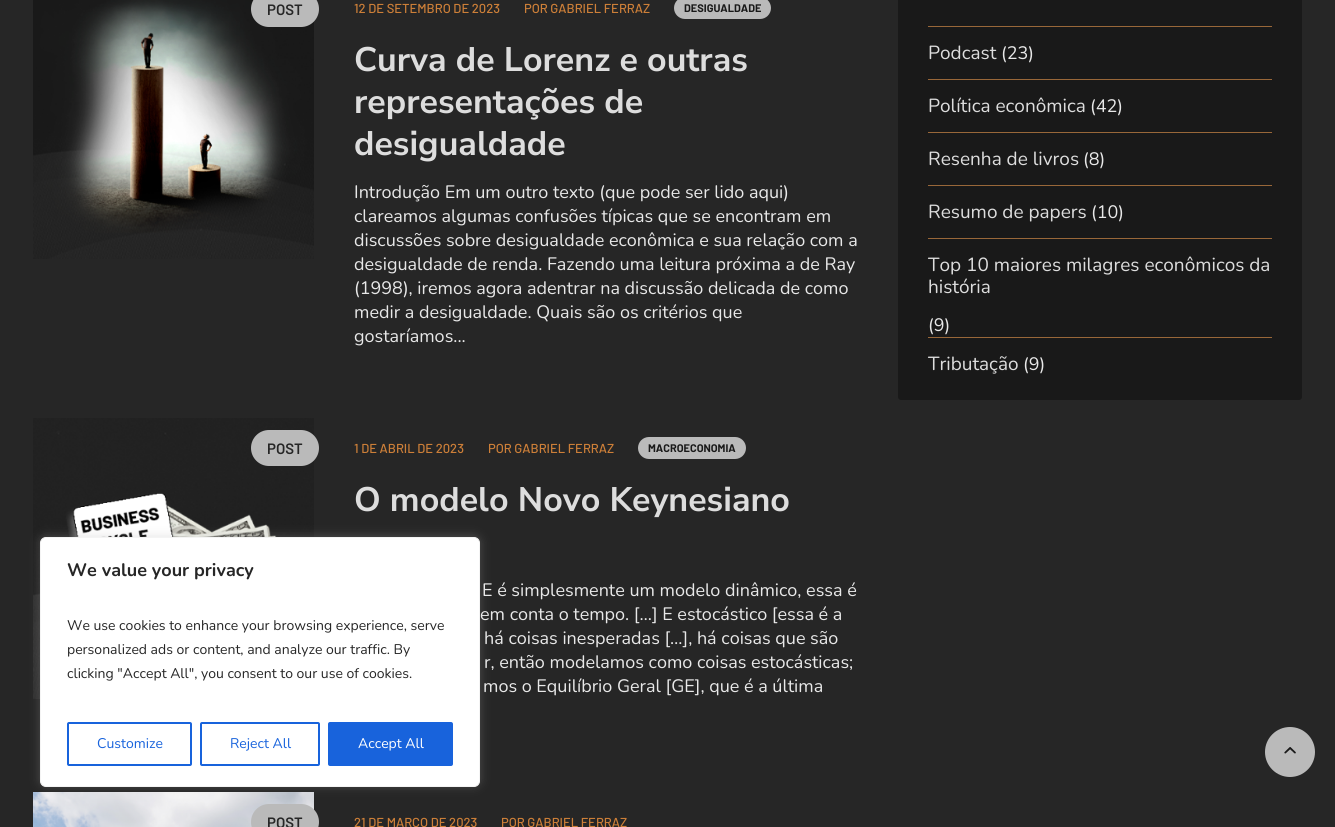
import math
import cairo

surface = cairo.ImageSurface(cairo.FORMAT_RGB24, 1335, 827)
cr = cairo.Context(surface)
options = cairo.FontOptions()
options.set_hint_metrics(cairo.HINT_METRICS_OFF)
options.set_hint_style(cairo.HINT_STYLE_NONE)
cr.set_font_options(options)
cr.set_miter_limit(4)


def rgb(code):
    cr.set_source_rgb(*(v / 255 for v in bytes.fromhex(code[-6:])))


def rrect(x, y, w, h, r):
    cr.new_sub_path()
    for i, (u, v) in enumerate([(x + w - r, y + h - r), (x + r, y + h - r), (x + r, y + r), (x + w - r, y + r)]):
        cr.arc(u, v, r, i * math.pi / 2, (i + 1) * math.pi / 2)
    cr.close_path()


def soft_shadow(x, y, w, h, r, blur, alpha):
    cr.push_group_with_content(cairo.CONTENT_ALPHA)
    cr.set_operator(cairo.OPERATOR_SOURCE)
    for i in range(15, -16, -2):
        e = blur * i / 6
        if min(w, h) + 2 * e > 0:
            cr.set_source_rgba(0, 0, 0, alpha * math.erfc((i - 1) / 8.5) / 2)
            rrect(x - e, y - e, w + 2 * e, h + 2 * e, max(0, min(r + e + blur * .6, min(w, h) / 2 + e)))
            cr.fill()
    cr.mask(cr.pop_group())


def image(path, x, y, w, h):
    cr.save()
    cr.set_source_surface(cairo.ImageSurface.create_from_png(path), x, y)
    cr.rectangle(x, y, w, h)
    cr.fill()
    cr.restore()


rgb("#262626")
cr.paint()
image("img/2.png", 33, 418, 281, 281)
image("img/3.png", 33, 792, 281, 35)
rgb("#acabab")
soft_shadow(40, 536, 440, 250, 6, 5, 0.3)
rgb("#ffffff")
rrect(40.5, 537.5, 439, 249, 5.5)
cr.fill_preserve()
rgb("#f4f4f4")
cr.set_line_width(1)
cr.stroke()
rrect(68, 723, 123, 42, 1)
rgb("#1863dc")
cr.set_line_width(2)
cr.stroke()
rrect(201, 723, 118, 42, 1)
cr.stroke()
rrect(329, 723, 123, 42, 1)
cr.fill_preserve()
cr.stroke()
image("img/1.png", 33, 0, 281, 259)
rgb("#bababa")
rrect(251, -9, 68, 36, 18)
cr.fill()
rrect(674, -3, 97, 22, 11)
cr.fill()
rrect(251, 430, 68, 36, 18)
cr.fill()
rrect(638, 437, 108, 22, 11)
cr.fill()
rrect(251, 804, 68, 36, 18)
cr.fill()
rgb("#191919")
rrect(898, -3, 404, 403, 3)
cr.fill()
for x, y, w, h, color in [
    (928, 26, 344, 1, "#986739"),
    (928, 79, 344, 1, "#986739"),
    (928, 132, 344, 1, "#986739"),
    (928, 185, 344, 1, "#986739"),
    (928, 238, 344, 1, "#986739"),
    (928, 337, 344, 1, "#986739"),
]:
    rgb(color)
    cr.rectangle(x, y, w, h)
    cr.fill()
rgb("#bababa")
cr.arc(1290, 752, 25, 0, 2 * math.pi)
cr.fill()
image("img/4.png", 1284, 747, 12, 7)
cr.select_font_face("Nunito", cairo.FONT_SLANT_NORMAL, cairo.FONT_WEIGHT_BOLD)
cr.set_font_size(18)
rgb("#262626")
cr.move_to(67, 576)
cr.show_text("We value your privacy")
cr.select_font_face("Nunito")
cr.set_font_size(14)
for x, y, s in [
    (67, 630, "We use cookies to enhance your browsing experience, serve"),
    (67, 654, "personalized ads or content, and analyze our traffic. By"),
    (67, 678, "clicking \"Accept All\", you consent to our use of cookies."),
]:
    cr.move_to(x, y)
    cr.show_text(s)
rgb("#1863dc")
cr.move_to(97, 748)
cr.show_text("Customize")
cr.move_to(230, 748)
cr.show_text("Reject All")
rgb("#ffffff")
cr.move_to(358, 748)
cr.show_text("Accept All")
cr.select_font_face("Barlow SemiBold")
cr.set_font_size(15)
rgb("#262626")
cr.move_to(267, 15)
cr.show_text("POST")
cr.select_font_face("Barlow Medium")
cr.set_font_size(13)
rgb("#cd7f38")
cr.move_to(354, 13)
cr.show_text("12 DE SETEMBRO DE 2023")
cr.move_to(524, 13)
cr.show_text("POR GABRIEL FERRAZ")
cr.select_font_face("Barlow", cairo.FONT_SLANT_NORMAL, cairo.FONT_WEIGHT_BOLD)
cr.set_font_size(11)
rgb("#191919")
cr.move_to(684, 12)
cr.show_text("DESIGUALDADE")
cr.select_font_face("Nunito Sans ExtraLight")
cr.set_font_size(34)
rgb("#dddddd")
for x, y, s in [
    (354, 71, "Curva de Lorenz e outras"),
    (354, 113, "representações de"),
    (354, 155, "desigualdade"),
]:
    cr.move_to(x, y)
    cr.show_text(s)
cr.select_font_face("Nunito")
cr.set_font_size(18)
rgb("#e8e8e8")
for x, y, s in [
    (354, 198, "Introdução Em um outro texto (que pode ser lido aqui)"),
    (354, 222, "clareamos algumas confusões típicas que se encontram em"),
    (354, 246, "discussões sobre desigualdade econômica e sua relação com a"),
    (354, 270, "desigualdade de renda. Fazendo uma leitura próxima a de Ray"),
    (354, 294, "(1998), iremos agora adentrar na discussão delicada de como"),
    (354, 318, "medir a desigualdade. Quais são os critérios que"),
    (354, 342, "gostaríamos..."),
]:
    cr.move_to(x, y)
    cr.show_text(s)
cr.select_font_face("Barlow SemiBold")
cr.set_font_size(15)
rgb("#262626")
cr.move_to(267, 454)
cr.show_text("POST")
cr.select_font_face("Barlow Medium")
cr.set_font_size(13)
rgb("#cd7f38")
cr.move_to(354, 453)
cr.show_text("1 DE ABRIL DE 2023")
cr.move_to(488, 453)
cr.show_text("POR GABRIEL FERRAZ")
cr.select_font_face("Barlow", cairo.FONT_SLANT_NORMAL, cairo.FONT_WEIGHT_BOLD)
cr.set_font_size(11)
rgb("#191919")
cr.move_to(648, 452)
cr.show_text("MACROECONOMIA")
cr.select_font_face("Nunito Sans ExtraLight")
cr.set_font_size(34)
rgb("#dddddd")
cr.move_to(354, 511)
cr.show_text("O modelo Novo Keynesiano")
cr.select_font_face("Nunito")
cr.set_font_size(18)
rgb("#e8e8e8")
for x, y, s in [
    (482, 596, "E é simplesmente um modelo dinâmico, essa é"),
    (480, 620, "em conta o tempo. […] E estocástico [essa é a"),
    (484, 644, "há coisas inesperadas […], há coisas que são"),
    (484, 668, "r, então modelamos como coisas estocásticas;"),
    (483, 692, "mos o Equilíbrio Geral [GE], que é a última"),
]:
    cr.move_to(x, y)
    cr.show_text(s)
cr.select_font_face("Barlow SemiBold")
cr.set_font_size(15)
rgb("#262626")
cr.move_to(267, 828)
cr.show_text("POST")
cr.select_font_face("Barlow Medium")
cr.set_font_size(13)
rgb("#cd7f38")
cr.move_to(354, 827)
cr.show_text("21 DE MARÇO DE 2023")
cr.move_to(501, 827)
cr.show_text("POR GABRIEL FERRAZ")
cr.select_font_face("Nunito")
cr.set_font_size(19)
rgb("#dddddd")
cr.move_to(928, 59)
cr.show_text("Podcast")
cr.set_font_size(18)
rgb("#e8e8e8")
cr.move_to(1001, 59)
cr.show_text("(23)")
cr.set_font_size(19)
rgb("#dddddd")
cr.move_to(928, 112)
cr.show_text("Política econômica")
cr.set_font_size(18)
rgb("#e8e8e8")
cr.move_to(1090, 112)
cr.show_text("(42)")
cr.set_font_size(19)
rgb("#dddddd")
cr.move_to(928, 165)
cr.show_text("Resenha de livros")
cr.set_font_size(18)
rgb("#e8e8e8")
cr.move_to(1083, 165)
cr.show_text("(8)")
cr.set_font_size(19)
rgb("#dddddd")
cr.move_to(928, 218)
cr.show_text("Resumo de papers")
cr.set_font_size(18)
rgb("#e8e8e8")
cr.move_to(1091, 218)
cr.show_text("(10)")
cr.set_font_size(19)
rgb("#dddddd")
cr.move_to(928, 271)
cr.show_text("Top 10 maiores milagres econômicos da")
cr.move_to(928, 293)
cr.show_text("história")
cr.set_font_size(18)
rgb("#e8e8e8")
cr.move_to(928, 331)
cr.show_text("(9)")
cr.set_font_size(19)
rgb("#dddddd")
cr.move_to(928, 370)
cr.show_text("Tributação")
cr.set_font_size(18)
rgb("#e8e8e8")
cr.move_to(1023, 370)
cr.show_text("(9)")
surface.write_to_png("page.png")
